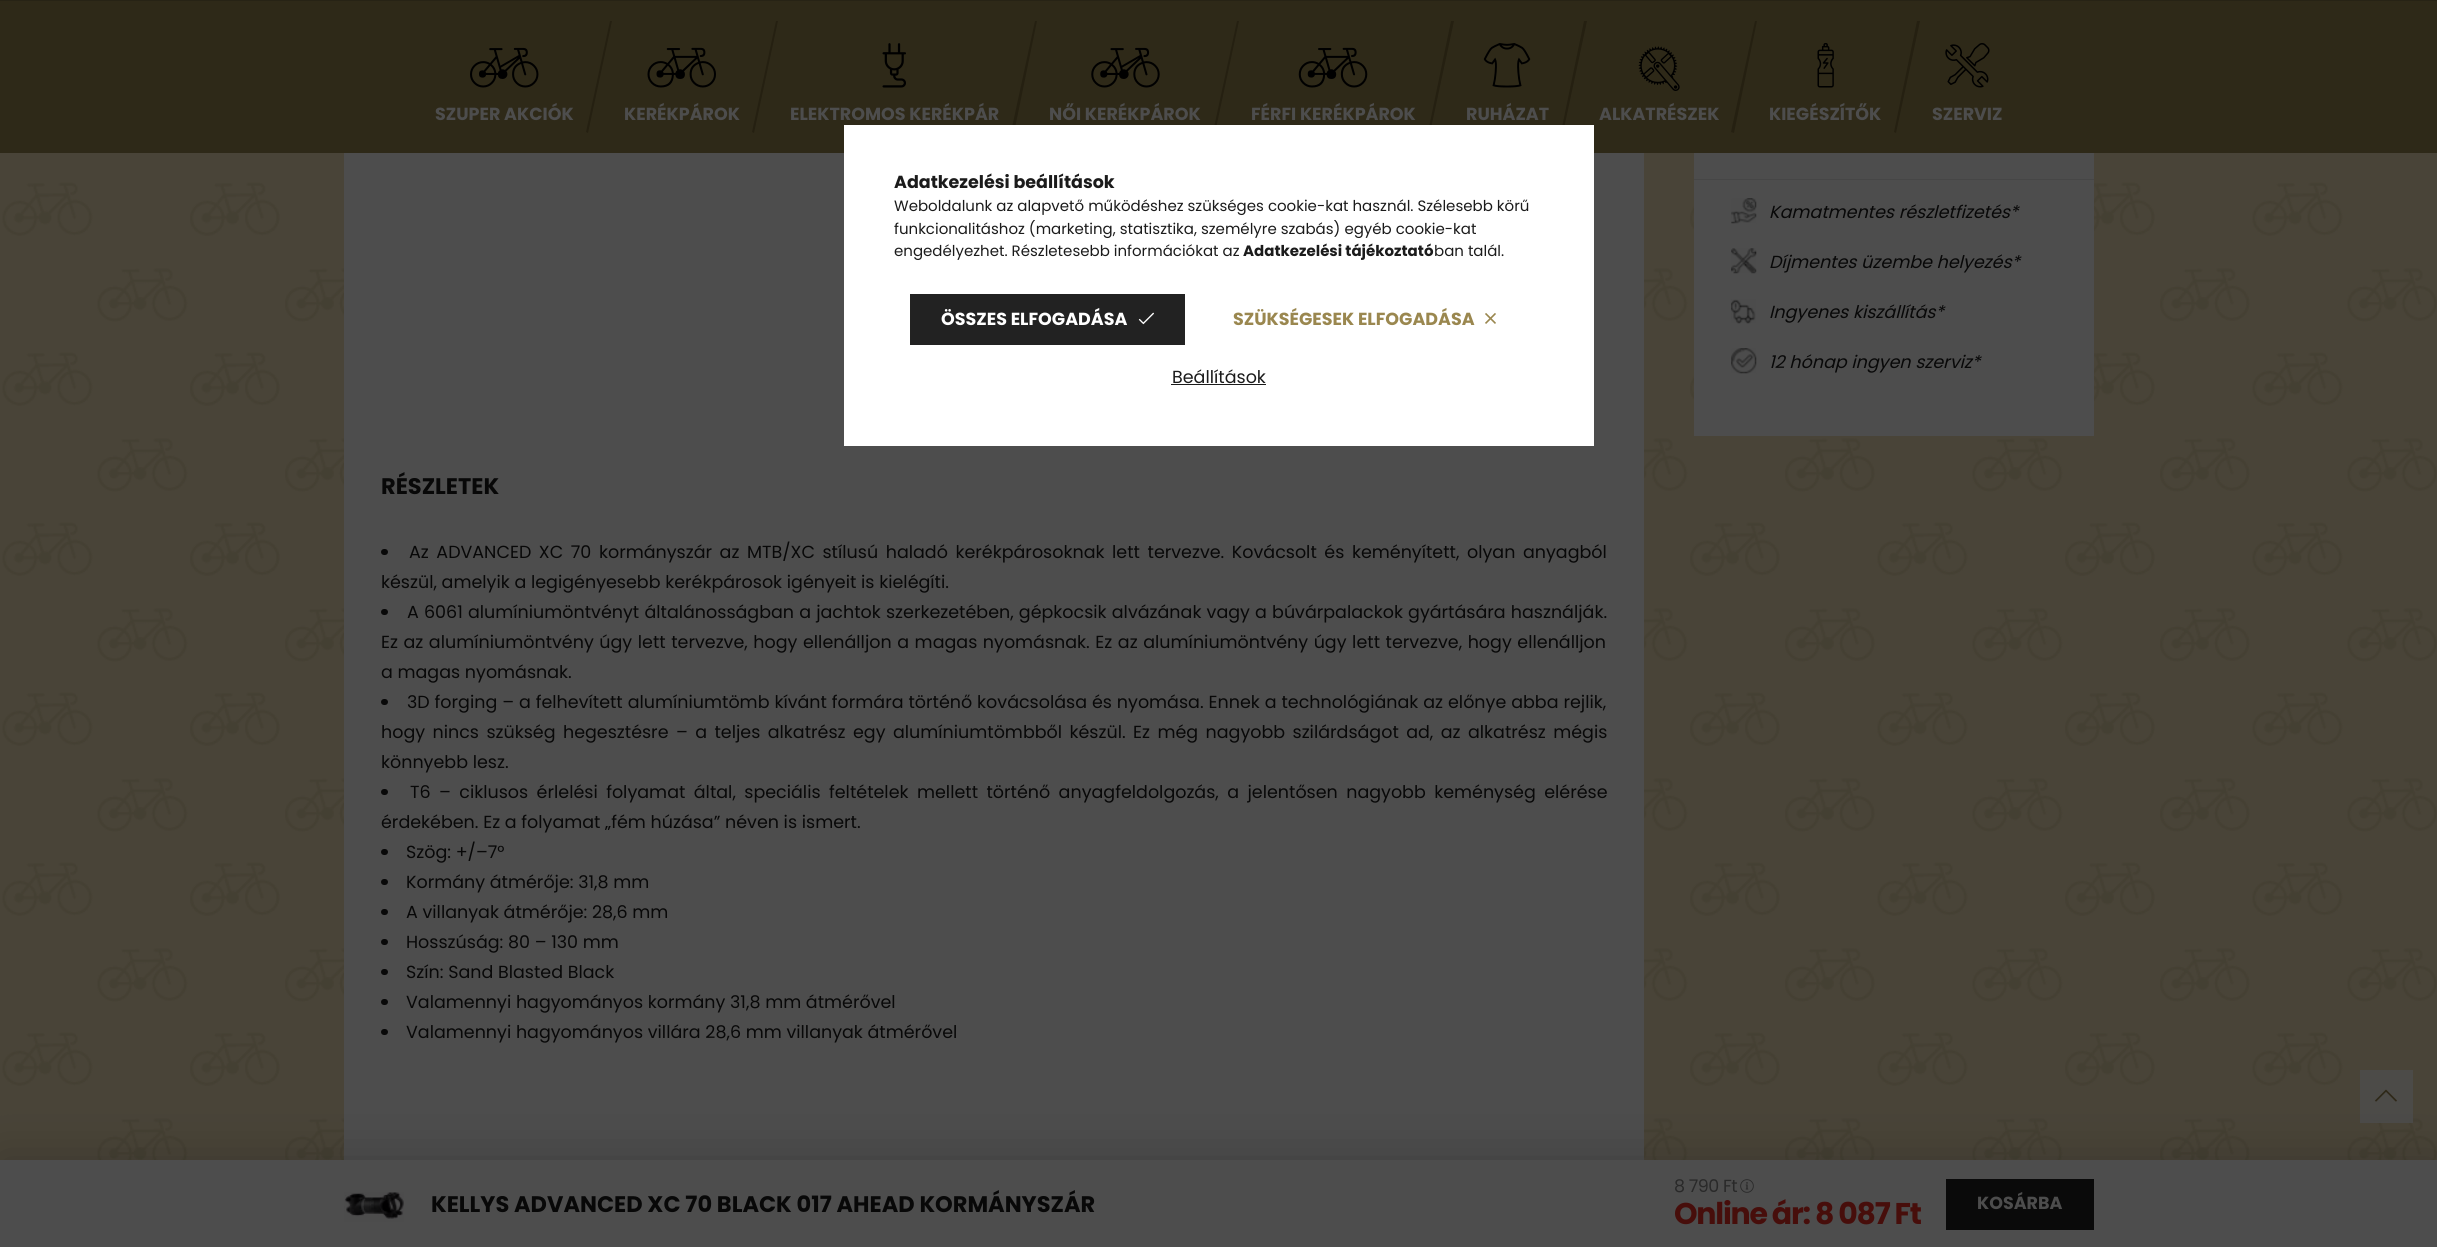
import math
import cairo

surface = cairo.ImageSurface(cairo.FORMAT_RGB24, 2437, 1247)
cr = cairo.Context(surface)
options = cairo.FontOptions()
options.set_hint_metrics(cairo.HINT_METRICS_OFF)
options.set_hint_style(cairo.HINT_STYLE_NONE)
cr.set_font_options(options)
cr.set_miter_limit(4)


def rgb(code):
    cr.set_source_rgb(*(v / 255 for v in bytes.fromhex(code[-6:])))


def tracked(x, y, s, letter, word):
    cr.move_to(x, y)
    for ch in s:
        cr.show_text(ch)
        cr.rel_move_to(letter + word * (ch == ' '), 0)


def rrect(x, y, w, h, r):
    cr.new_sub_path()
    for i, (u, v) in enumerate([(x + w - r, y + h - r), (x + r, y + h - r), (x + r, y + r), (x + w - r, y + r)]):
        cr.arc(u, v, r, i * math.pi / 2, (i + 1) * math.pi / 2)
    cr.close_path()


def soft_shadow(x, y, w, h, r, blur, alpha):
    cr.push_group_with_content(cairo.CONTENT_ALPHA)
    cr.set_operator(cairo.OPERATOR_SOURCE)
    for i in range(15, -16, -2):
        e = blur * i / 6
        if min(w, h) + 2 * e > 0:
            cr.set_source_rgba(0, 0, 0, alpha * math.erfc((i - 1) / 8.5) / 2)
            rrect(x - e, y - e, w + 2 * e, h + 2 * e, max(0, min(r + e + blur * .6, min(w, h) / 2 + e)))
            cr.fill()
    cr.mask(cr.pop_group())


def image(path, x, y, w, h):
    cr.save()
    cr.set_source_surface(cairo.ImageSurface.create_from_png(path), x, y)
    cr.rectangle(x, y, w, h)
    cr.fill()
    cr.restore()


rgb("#494438")
cr.paint()
image("img/1.png", 2, 182, 2435, 978)
rgb("#2e2918")
cr.rectangle(0, 1, 2437, 152)
cr.fill()
rgb("#272315")
cr.rectangle(0, 0, 2437, 1)
cr.fill()
image("img/2.png", 470, 47, 69, 41)
rgb("#252011")
cr.new_path()
cr.move_to(610, 21)
cr.line_to(612, 21)
cr.line_to(588, 133)
cr.line_to(586, 132)
cr.close_path()
cr.fill()
image("img/3.png", 647, 47, 69, 41)
cr.new_path()
cr.move_to(776, 21)
cr.line_to(778, 21)
cr.line_to(754, 133)
cr.line_to(752, 132)
cr.close_path()
cr.fill()
image("img/4.png", 882, 43, 24, 45)
cr.new_path()
cr.move_to(1035, 21)
cr.line_to(1037, 21)
cr.line_to(1014, 133)
cr.line_to(1011, 132)
cr.close_path()
cr.fill()
image("img/5.png", 1091, 47, 69, 41)
cr.new_path()
cr.move_to(1237, 21)
cr.line_to(1239, 21)
cr.line_to(1215, 133)
cr.line_to(1213, 132)
cr.close_path()
cr.fill()
image("img/6.png", 1298, 47, 70, 41)
cr.new_path()
cr.move_to(1451, 21)
cr.line_to(1454, 21)
cr.line_to(1430, 133)
cr.line_to(1428, 132)
cr.close_path()
cr.fill()
image("img/7.png", 1483, 43, 48, 45)
cr.new_path()
cr.move_to(1584, 21)
cr.line_to(1587, 21)
cr.line_to(1563, 133)
cr.line_to(1561, 132)
cr.close_path()
cr.fill()
image("img/8.png", 1638, 46, 42, 45)
cr.new_path()
cr.move_to(1755, 21)
cr.line_to(1757, 21)
cr.line_to(1734, 133)
cr.line_to(1731, 132)
cr.close_path()
cr.fill()
image("img/9.png", 1817, 43, 17, 45)
cr.new_path()
cr.move_to(1917, 21)
cr.line_to(1920, 21)
cr.line_to(1896, 133)
cr.line_to(1894, 132)
cr.close_path()
cr.fill()
image("img/10.png", 1945, 43, 45, 45)
rgb("#4d4d4d")
cr.rectangle(1694, 153, 400, 283)
cr.fill()
rgb("#464646")
cr.rectangle(1694, 179, 400, 1)
cr.fill()
image("img/11.png", 1731, 198, 26, 26)
image("img/12.png", 1731, 248, 26, 26)
image("img/13.png", 1731, 299, 25, 25)
image("img/14.png", 1731, 348, 26, 26)
rgb("#4d4d4d")
cr.rectangle(344, 153, 1300, 1007)
cr.fill()
rgb("#080808")
rrect(381, 549, 7, 6, 3)
cr.fill()
rrect(381, 609, 7, 6, 3)
cr.fill()
rrect(381, 699, 7, 6, 3)
cr.fill()
rrect(381, 789, 7, 6, 3)
cr.fill()
rrect(381, 849, 7, 6, 3)
cr.fill()
rrect(381, 879, 7, 6, 3)
cr.fill()
rrect(381, 909, 7, 6, 3)
cr.fill()
rrect(381, 939, 7, 6, 3)
cr.fill()
rrect(381, 969, 7, 6, 3)
cr.fill()
rrect(381, 999, 7, 6, 3)
cr.fill()
rrect(381, 1029, 7, 6, 3)
cr.fill()
rgb("#000000")
soft_shadow(0, 1160, 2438, 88, 0, 25, 0.2)
rgb("#4d4d4d")
cr.rectangle(0, 1160, 2437, 87)
cr.fill()
image("img/15.png", 344, 1192, 60, 30)
image("img/16.png", 1740, 1179, 14, 14)
gradient = cairo.LinearGradient(1651, 1204, 2094, 1204)
gradient.add_color_stop_rgba(0, 0.18, 0.161, 0.094, 1)
gradient.add_color_stop_rgba(0.33, 0.18, 0.161, 0.094, 1)
gradient.add_color_stop_rgba(0.67, 0.039, 0.039, 0.039, 1)
gradient.add_color_stop_rgba(1, 0.039, 0.039, 0.039, 1)
cr.set_source(gradient)
cr.rectangle(1946, 1179, 148, 51)
cr.fill()
rgb("#ffffff")
cr.rectangle(844, 125, 750, 321)
cr.fill()
gradient = cairo.LinearGradient(360, 319, 1185, 319)
gradient.add_color_stop_rgba(0, 0.604, 0.529, 0.31, 1)
gradient.add_color_stop_rgba(0.33, 0.604, 0.529, 0.31, 1)
gradient.add_color_stop_rgba(0.67, 0.133, 0.133, 0.133, 1)
gradient.add_color_stop_rgba(1, 0.133, 0.133, 0.133, 1)
cr.set_source(gradient)
cr.rectangle(910, 294, 275, 51)
cr.fill()
image("img/17.png", 1138, 312, 16, 13)
image("img/18.png", 1485, 313, 11, 11)
rgb("#1b1b1b")
cr.rectangle(1171, 384, 95, 1)
cr.fill()
cr.set_source_rgba(0.302, 0.302, 0.302, 0.8)
cr.rectangle(2360, 1070, 53, 53)
cr.fill()
image("img/19.png", 2375, 1089, 22, 13)
cr.select_font_face("Poppins", cairo.FONT_SLANT_NORMAL, cairo.FONT_WEIGHT_BOLD)
cr.set_font_size(17.5)
rgb("#4d4d4d")
for x, y, s in [
    (435, 120, "SZUPER AKCIÓK"),
    (624, 120, "KERÉKPÁROK"),
    (790, 120, "ELEKTROMOS KERÉKPÁR"),
    (1049, 120, "NŐI KERÉKPÁROK"),
    (1251, 120, "FÉRFI KERÉKPÁROK"),
    (1466, 120, "RUHÁZAT"),
    (1599, 120, "ALKATRÉSZEK"),
    (1769, 120, "KIEGÉSZÍTŐK"),
    (1932, 120, "SZERVIZ"),
]:
    cr.move_to(x, y)
    cr.show_text(s)
cr.select_font_face("Poppins", cairo.FONT_SLANT_ITALIC)
rgb("#080808")
for x, y, s in [
    (1769, 218, "Kamatmentes részletfizetés*"),
    (1769, 268, "Díjmentes üzembe helyezés*"),
    (1769, 318, "Ingyenes kiszállítás*"),
    (1769, 368, "12 hónap ingyen szerviz*"),
]:
    cr.move_to(x, y)
    cr.show_text(s)
cr.select_font_face("Poppins", cairo.FONT_SLANT_NORMAL, cairo.FONT_WEIGHT_BOLD)
cr.set_font_size(22.5)
cr.move_to(381, 494)
cr.show_text("RÉSZLETEK")
cr.select_font_face("Poppins")
cr.set_font_size(17.5)
tracked(409, 558, "Az ADVANCED XC 70 kormányszár az MTB/XC stílusú haladó kerékpárosoknak lett tervezve. Kovácsolt és keményített, olyan anyagból", 0, 2.9)
cr.move_to(381, 588)
cr.show_text("készül, amelyik a legigényesebb kerékpárosok igényeit is kielégíti.")
tracked(407, 618, "A 6061 alumíniumöntvényt általánosságban a jachtok szerkezetében, gépkocsik alvázának vagy a búvárpalackok gyártására használják.", 0, 0.5)
tracked(381, 648, "Ez az alumíniumöntvény úgy lett tervezve, hogy ellenálljon a magas nyomásnak. Ez az alumíniumöntvény úgy lett tervezve, hogy ellenálljon", 0, 0.9)
cr.move_to(381, 678)
cr.show_text("a magas nyomásnak.")
tracked(407, 708, "3D forging – a felhevített alumíniumtömb kívánt formára történő kovácsolása és nyomása. Ennek a technológiának az előnye abba rejlik,", 0, 0.25)
tracked(381, 738, "hogy nincs szükség hegesztésre – a teljes alkatrész egy alumíniumtömbből készül. Ez még nagyobb szilárdságot ad, az alkatrész mégis", 0, 2.75)
cr.move_to(381, 768)
cr.show_text("könnyebb lesz.")
tracked(410, 798, "T6 – ciklusos érlelési folyamat által, speciális feltételek mellett történő anyagfeldolgozás, a jelentősen nagyobb keménység elérése", 0, 3.75)
for x, y, s in [
    (381, 828, "érdekében. Ez a folyamat „fém húzása” néven is ismert."),
    (406, 858, "Szög: +/–7°"),
    (406, 888, "Kormány átmérője: 31,8 mm"),
    (406, 918, "A villanyak átmérője: 28,6 mm"),
    (406, 948, "Hosszúság: 80 – 130 mm"),
    (406, 978, "Szín: Sand Blasted Black"),
    (406, 1008, "Valamennyi hagyományos kormány 31,8 mm átmérővel"),
    (406, 1038, "Valamennyi hagyományos villára 28,6 mm villanyak átmérővel"),
]:
    cr.move_to(x, y)
    cr.show_text(s)
cr.select_font_face("Poppins", cairo.FONT_SLANT_NORMAL, cairo.FONT_WEIGHT_BOLD)
cr.set_font_size(22.5)
cr.move_to(431, 1212)
cr.show_text("KELLYS ADVANCED XC 70 BLACK 017 AHEAD KORMÁNYSZÁR")
cr.select_font_face("Poppins")
cr.set_font_size(17.5)
rgb("#292929")
tracked(1674, 1192, "8 790 Ft", -0.5, 0)
cr.select_font_face("Poppins", cairo.FONT_SLANT_NORMAL, cairo.FONT_WEIGHT_BOLD)
cr.set_font_size(30)
rgb("#470e0b")
tracked(1674, 1224, "Online ár: 8 087 Ft", -1.25, 0)
cr.set_font_size(17.5)
rgb("#4d4d4d")
cr.move_to(1977, 1209)
cr.show_text("KOSÁRBA")
rgb("#1b1b1b")
cr.move_to(894, 188)
cr.show_text("Adatkezelési beállítások")
cr.select_font_face("Poppins")
cr.set_font_size(15)
for x, y, s in [
    (894, 211, "Weboldalunk az alapvető működéshez szükséges cookie-kat használ. Szélesebb körű"),
    (894, 234, "funkcionalitáshoz (marketing, statisztika, személyre szabás) egyéb cookie-kat"),
    (894, 256, "engedélyezhet. Részletesebb információkat az"),
]:
    cr.move_to(x, y)
    cr.show_text(s)
cr.select_font_face("Poppins", cairo.FONT_SLANT_NORMAL, cairo.FONT_WEIGHT_BOLD)
cr.move_to(1243, 256)
cr.show_text("Adatkezelési tájékoztató")
cr.select_font_face("Poppins")
cr.move_to(1434, 256)
cr.show_text("ban talál.")
cr.select_font_face("Poppins", cairo.FONT_SLANT_NORMAL, cairo.FONT_WEIGHT_BOLD)
cr.set_font_size(17.5)
rgb("#ffffff")
cr.move_to(941, 325)
cr.show_text("ÖSSZES ELFOGADÁSA")
rgb("#9a874f")
cr.move_to(1233, 325)
cr.show_text("SZÜKSÉGESEK ELFOGADÁSA")
cr.select_font_face("Poppins")
rgb("#1b1b1b")
cr.move_to(1172, 383)
cr.show_text("Beállítások")
surface.write_to_png("page.png")
